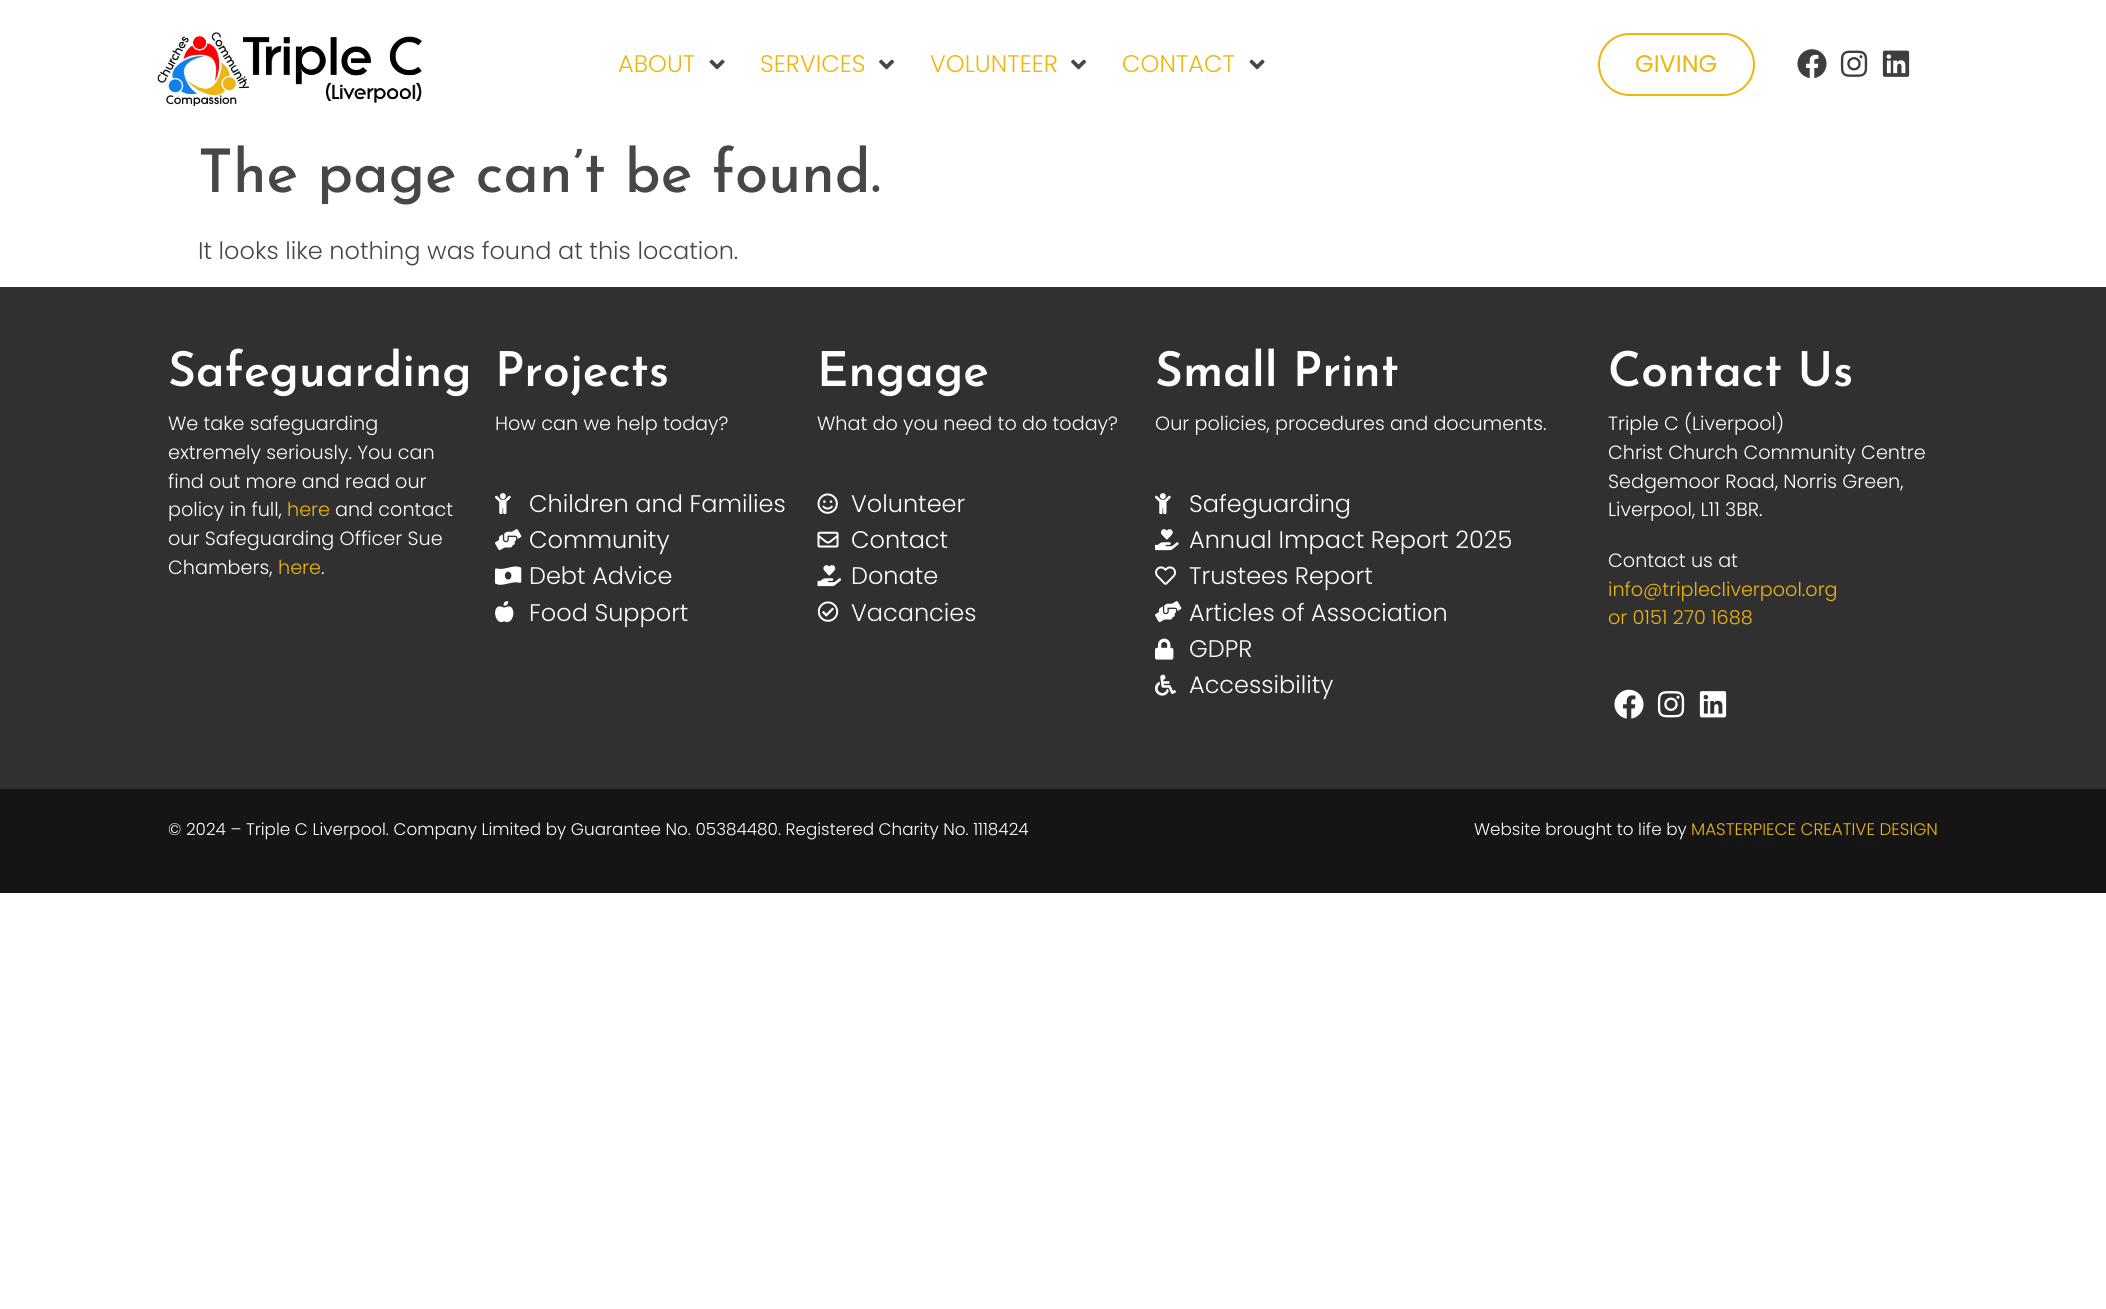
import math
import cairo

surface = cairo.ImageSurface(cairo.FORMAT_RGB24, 2106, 1309)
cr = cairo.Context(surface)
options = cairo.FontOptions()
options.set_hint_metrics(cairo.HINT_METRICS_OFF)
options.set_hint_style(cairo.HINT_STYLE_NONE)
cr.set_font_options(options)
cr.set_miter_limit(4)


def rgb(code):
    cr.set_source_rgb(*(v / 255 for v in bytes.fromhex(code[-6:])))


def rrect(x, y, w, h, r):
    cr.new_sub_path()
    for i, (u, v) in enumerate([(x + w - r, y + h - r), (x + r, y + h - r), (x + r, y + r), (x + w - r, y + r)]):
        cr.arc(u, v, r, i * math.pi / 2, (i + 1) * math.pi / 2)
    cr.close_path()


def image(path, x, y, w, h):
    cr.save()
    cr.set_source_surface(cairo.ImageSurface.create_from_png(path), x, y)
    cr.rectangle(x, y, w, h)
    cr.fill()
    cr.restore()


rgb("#ffffff")
cr.paint()
image("img/1.png", 157, 32, 265, 75)
image("img/2.png", 709, 59, 16, 11)
image("img/3.png", 879, 59, 15, 11)
image("img/3.png", 1071, 59, 15, 11)
image("img/2.png", 1249, 59, 16, 11)
rrect(1599, 34, 155, 61, 30.5)
rgb("#ecb60d")
cr.stroke()
image("img/4.png", 1797, 49, 30, 30)
image("img/5.png", 1840, 50, 28, 27)
image("img/6.png", 1882, 50, 28, 27)
rgb("#303030")
cr.rectangle(0, 287, 2106, 502)
cr.fill()
image("img/7.png", 495, 493, 16, 22)
image("img/8.png", 495, 529, 27, 22)
image("img/9.png", 495, 566, 27, 19)
image("img/10.png", 495, 601, 19, 22)
image("img/11.png", 817, 493, 21, 21)
image("img/12.png", 817, 531, 22, 17)
image("img/13.png", 817, 565, 25, 22)
image("img/14.png", 817, 601, 22, 21)
image("img/7.png", 1155, 493, 16, 22)
image("img/15.png", 1155, 529, 24, 22)
image("img/16.png", 1155, 566, 21, 19)
image("img/8.png", 1155, 601, 27, 22)
image("img/17.png", 1155, 638, 19, 22)
image("img/18.png", 1155, 674, 21, 22)
image("img/19.png", 1614, 689, 30, 30)
image("img/20.png", 1657, 691, 28, 27)
image("img/21.png", 1699, 691, 28, 27)
rgb("#151515")
cr.rectangle(0, 789, 2106, 104)
cr.fill()
cr.select_font_face("Poppins Light")
cr.set_font_size(24)
rgb("#ecb60d")
for x, y, s in [
    (618, 72, "ABOUT"),
    (760, 72, "SERVICES"),
    (930, 72, "VOLUNTEER"),
    (1122, 72, "CONTACT"),
]:
    cr.move_to(x, y)
    cr.show_text(s)
cr.select_font_face("Poppins")
cr.move_to(1635, 72)
cr.show_text("GIVING")
cr.select_font_face("Josefin Sans Medium")
cr.set_font_size(60)
rgb("#474747")
cr.move_to(198, 192)
cr.show_text("The page can’t be found.")
cr.select_font_face("Poppins Light")
cr.set_font_size(24)
cr.move_to(198, 259)
cr.show_text("It looks like nothing was found at this location.")
cr.select_font_face("Josefin Sans SemiBold")
cr.set_font_size(48)
rgb("#ffffff")
cr.move_to(168, 386)
cr.show_text("Safeguarding")
cr.select_font_face("Poppins Light")
cr.set_font_size(19.2)
for x, y, s in [
    (168, 430, "We take safeguarding"),
    (168, 459, "extremely seriously. You can"),
    (168, 488, "find out more and read our"),
    (168, 516, "policy in full,"),
]:
    cr.move_to(x, y)
    cr.show_text(s)
rgb("#ecb60d")
cr.move_to(287, 516)
cr.show_text("here")
rgb("#ffffff")
for x, y, s in [
    (335, 516, "and contact"),
    (168, 545, "our Safeguarding Officer Sue"),
    (168, 574, "Chambers,"),
]:
    cr.move_to(x, y)
    cr.show_text(s)
rgb("#ecb60d")
cr.move_to(278, 574)
cr.show_text("here")
rgb("#ffffff")
cr.move_to(321, 574)
cr.show_text(".")
cr.select_font_face("Josefin Sans SemiBold")
cr.set_font_size(48)
cr.move_to(495, 386)
cr.show_text("Projects")
cr.select_font_face("Poppins Light")
cr.set_font_size(19.2)
cr.move_to(495, 430)
cr.show_text("How can we help today?")
cr.set_font_size(24)
for x, y, s in [
    (529, 512, "Children and Families"),
    (529, 548, "Community"),
    (529, 584, "Debt Advice"),
    (529, 621, "Food Support"),
]:
    cr.move_to(x, y)
    cr.show_text(s)
cr.select_font_face("Josefin Sans SemiBold")
cr.set_font_size(48)
cr.move_to(817, 386)
cr.show_text("Engage")
cr.select_font_face("Poppins Light")
cr.set_font_size(19.2)
cr.move_to(817, 430)
cr.show_text("What do you need to do today?")
cr.set_font_size(24)
for x, y, s in [
    (851, 512, "Volunteer"),
    (851, 548, "Contact"),
    (851, 584, "Donate"),
    (851, 621, "Vacancies"),
]:
    cr.move_to(x, y)
    cr.show_text(s)
cr.select_font_face("Josefin Sans SemiBold")
cr.set_font_size(48)
cr.move_to(1155, 386)
cr.show_text("Small Print")
cr.select_font_face("Poppins Light")
cr.set_font_size(19.2)
cr.move_to(1155, 430)
cr.show_text("Our policies, procedures and documents.")
cr.set_font_size(24)
for x, y, s in [
    (1189, 512, "Safeguarding"),
    (1189, 548, "Annual Impact Report 2025"),
    (1189, 584, "Trustees Report"),
    (1189, 621, "Articles of Association"),
    (1189, 657, "GDPR"),
    (1189, 693, "Accessibility"),
]:
    cr.move_to(x, y)
    cr.show_text(s)
cr.select_font_face("Josefin Sans SemiBold")
cr.set_font_size(48)
cr.move_to(1608, 386)
cr.show_text("Contact Us")
cr.select_font_face("Poppins Light")
cr.set_font_size(19.2)
for x, y, s in [
    (1608, 430, "Triple C (Liverpool)"),
    (1608, 459, "Christ Church Community Centre"),
    (1608, 488, "Sedgemoor Road, Norris Green,"),
    (1608, 516, "Liverpool, L11 3BR."),
    (1608, 567, "Contact us at"),
]:
    cr.move_to(x, y)
    cr.show_text(s)
rgb("#ecb60d")
cr.move_to(1608, 596)
cr.show_text("info@triplecliverpool.org")
cr.move_to(1608, 624)
cr.show_text("or 0151 270 1688")
cr.set_font_size(16.8)
rgb("#ffffff")
cr.move_to(168, 835)
cr.show_text("© 2024 – Triple C Liverpool. Company Limited by Guarantee No. 05384480. Registered Charity No. 1118424")
cr.move_to(1474, 835)
cr.show_text("Website brought to life by")
rgb("#ecb60d")
cr.move_to(1691, 835)
cr.show_text("MASTERPIECE CREATIVE DESIGN")
surface.write_to_png("page.png")
